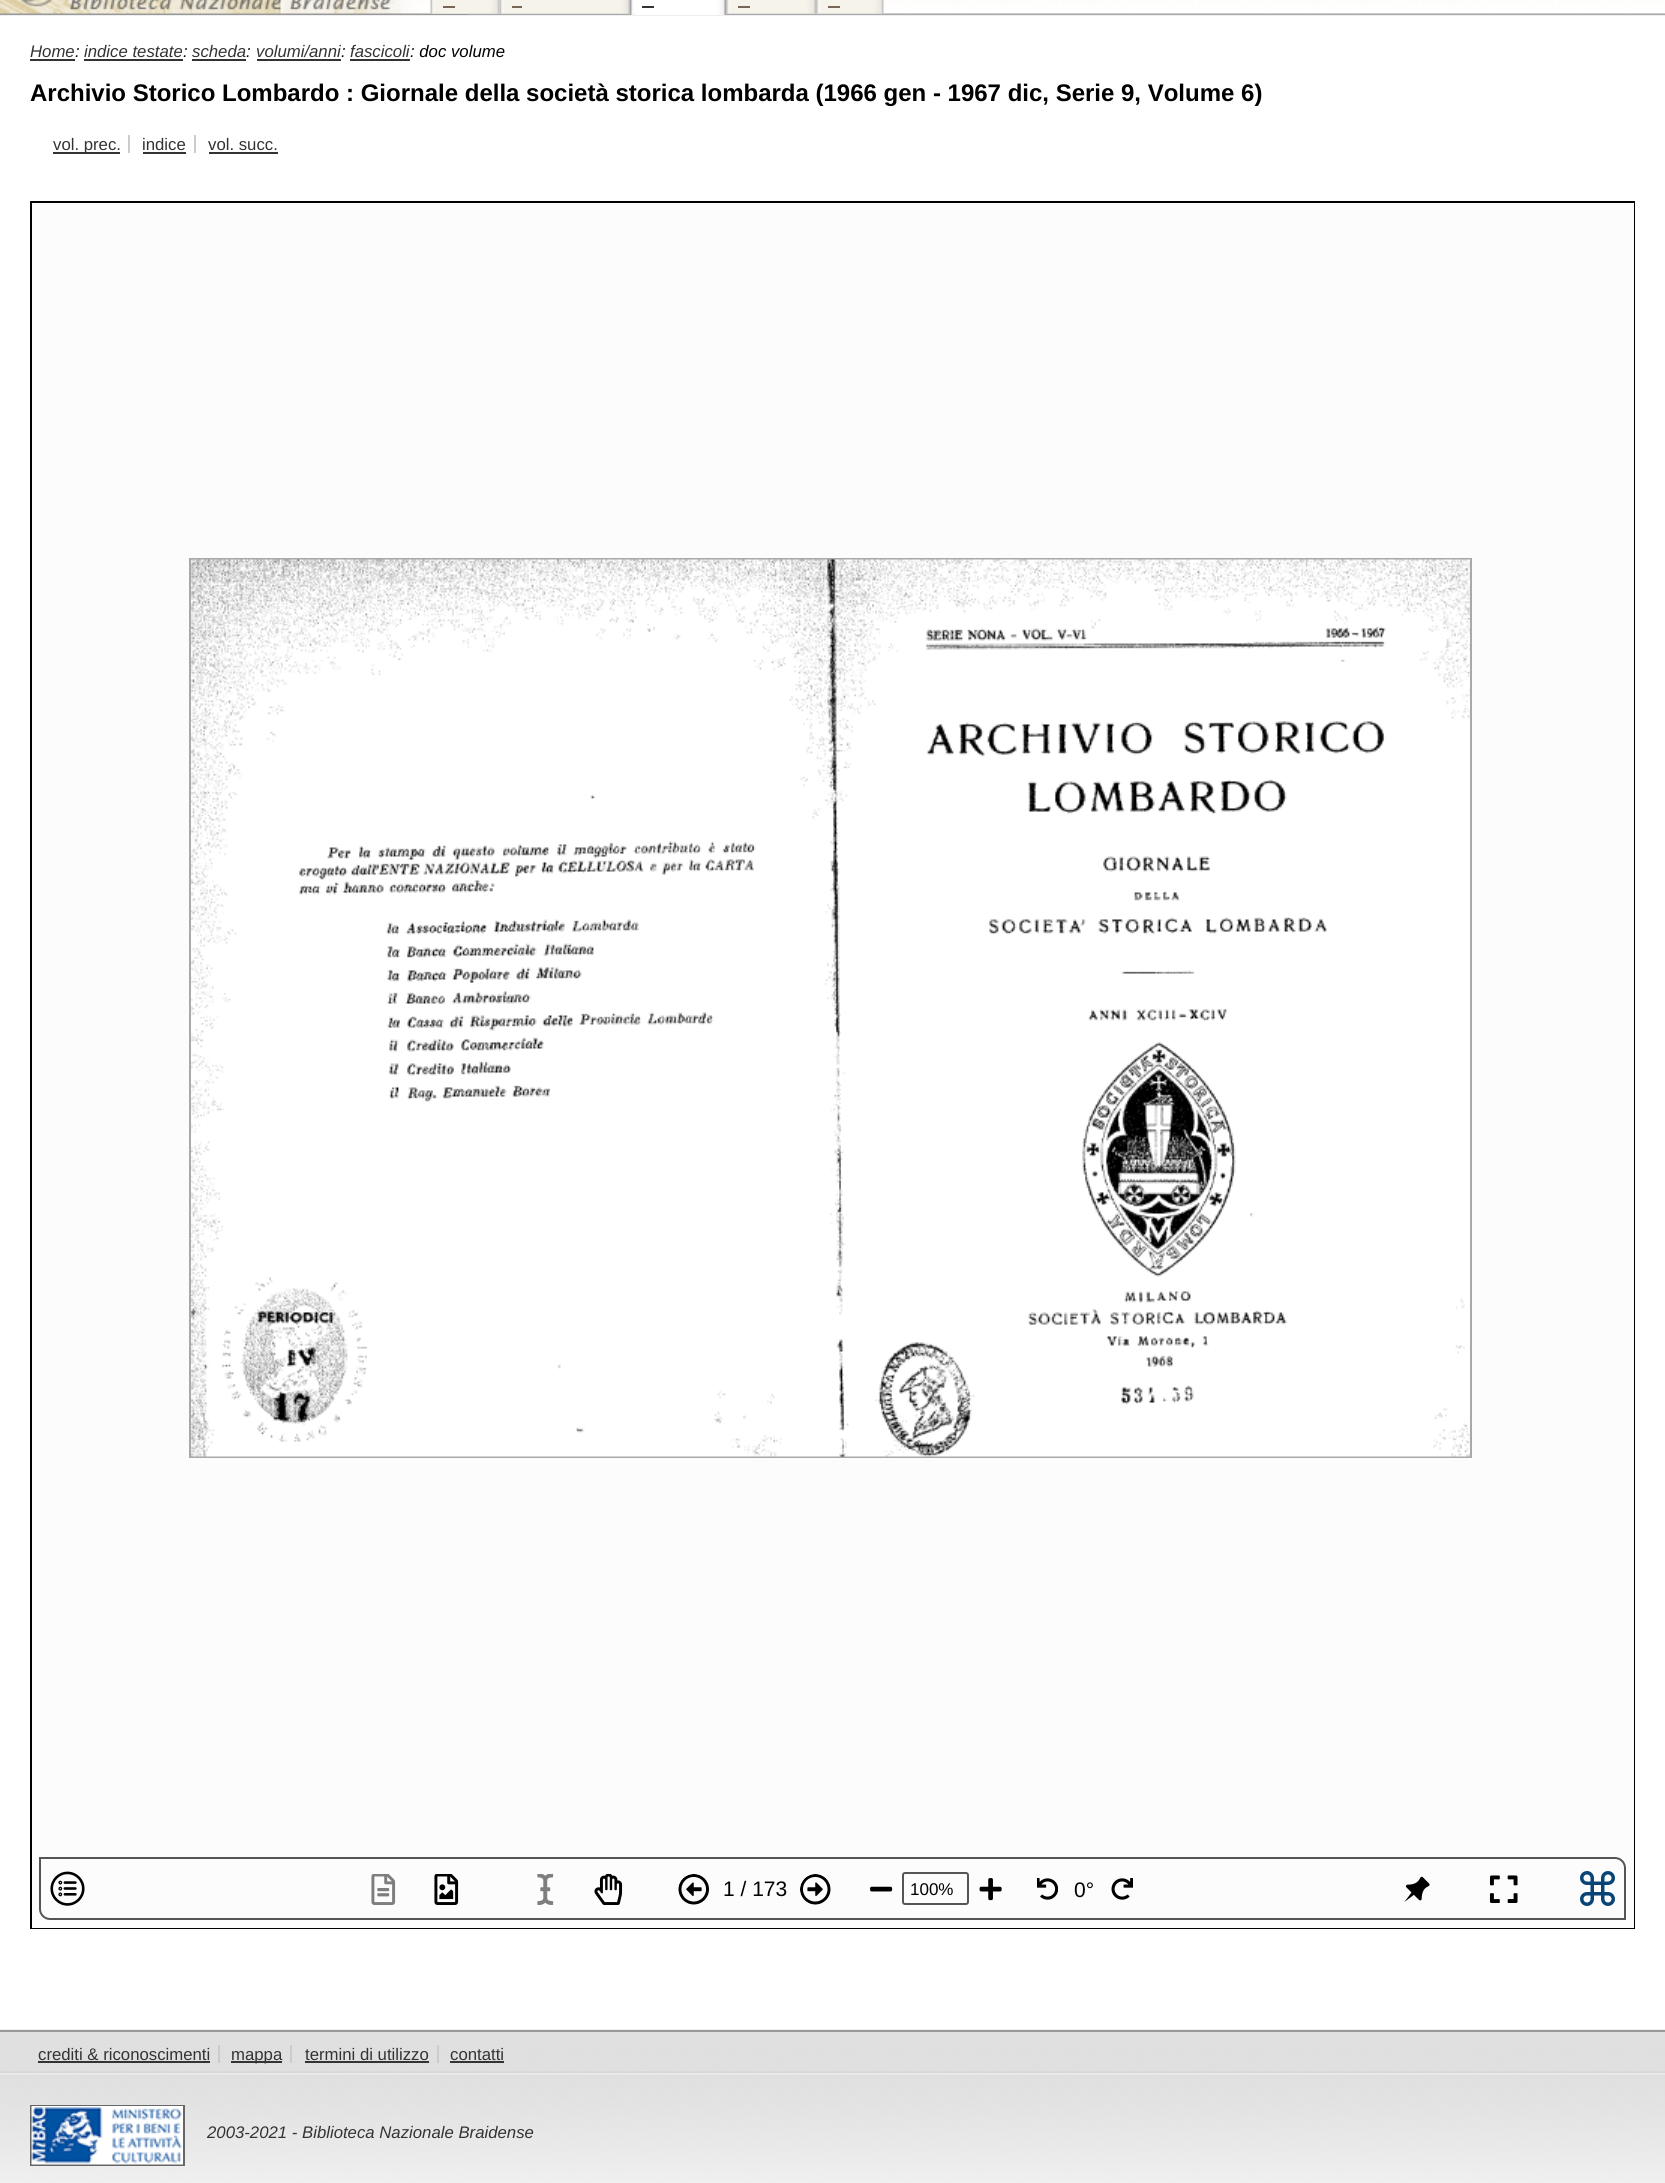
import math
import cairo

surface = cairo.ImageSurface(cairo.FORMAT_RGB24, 1665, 2183)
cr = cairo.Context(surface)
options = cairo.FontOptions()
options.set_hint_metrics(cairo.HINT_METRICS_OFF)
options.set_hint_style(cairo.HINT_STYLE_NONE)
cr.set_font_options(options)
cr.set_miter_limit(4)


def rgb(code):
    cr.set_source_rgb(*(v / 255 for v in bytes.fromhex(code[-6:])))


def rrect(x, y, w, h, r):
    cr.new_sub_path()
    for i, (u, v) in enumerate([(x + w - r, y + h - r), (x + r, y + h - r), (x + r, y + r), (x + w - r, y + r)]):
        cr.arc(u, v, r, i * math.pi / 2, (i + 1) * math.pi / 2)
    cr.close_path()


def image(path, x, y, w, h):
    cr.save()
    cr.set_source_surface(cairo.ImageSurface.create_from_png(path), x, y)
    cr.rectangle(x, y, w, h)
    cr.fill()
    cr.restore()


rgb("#ffffff")
cr.paint()
image("img/1.png", 0, 0, 1665, 16)
image("img/2.png", 0, 0, 468, 15)
image("img/3.png", 430, 0, 5, 14)
image("img/4.png", 435, 0, 65, 14)
rgb("#776655")
cr.rectangle(443, 6, 12, 2)
cr.fill()
image("img/5.png", 499, 0, 5, 14)
image("img/6.png", 504, 0, 126, 14)
cr.rectangle(512, 6, 10, 2)
cr.fill()
image("img/7.png", 630, 0, 5, 15)
image("img/8.png", 634, 0, 92, 15)
rgb("#333333")
cr.rectangle(642, 6, 12, 2)
cr.fill()
image("img/9.png", 726, 0, 5, 14)
image("img/10.png", 730, 0, 86, 14)
rgb("#776655")
cr.rectangle(738, 6, 12, 2)
cr.fill()
image("img/11.png", 816, 0, 5, 14)
image("img/12.png", 820, 0, 64, 14)
for x, y, w, h, color in [
    (828, 6, 12, 2, "#776655"),
    (30, 59, 45, 2, "#333333"),
    (84, 59, 99, 2, "#333333"),
    (192, 59, 54, 2, "#333333"),
    (257, 59, 84, 2, "#333333"),
    (350, 59, 60, 2, "#333333"),
    (128, 135, 2, 18, "#cccccc"),
    (53, 152, 67, 2, "#333333"),
    (194, 135, 2, 18, "#cccccc"),
    (143, 152, 43, 2, "#333333"),
    (209, 152, 69, 2, "#333333"),
]:
    rgb(color)
    cr.rectangle(x, y, w, h)
    cr.fill()
cr.rectangle(31, 202, 1603, 1726)
rgb("#000000")
cr.stroke()
rgb("#fcfcfc")
cr.rectangle(32, 203, 1602, 1725)
cr.fill()
cr.rectangle(190, 559, 1281, 898)
rgb("#a9a9a9")
cr.stroke()
image("img/13.png", 191, 559, 1279, 898)
cr.new_path()
cr.move_to(40, 1858)
cr.line_to(1615, 1858)
cr.curve_to(1620.5, 1858, 1625, 1862.5, 1625, 1868)
cr.line_to(1625, 1919)
cr.line_to(50, 1919)
cr.curve_to(44.5, 1919, 40, 1914.5, 40, 1909)
cr.close_path()
rgb("#555555")
cr.stroke()
image("img/14.png", 50, 1871, 35, 35)
image("img/15.png", 371, 1874, 25, 31)
image("img/16.png", 434, 1874, 25, 31)
image("img/17.png", 537, 1874, 17, 31)
image("img/18.png", 594, 1874, 29, 31)
image("img/19.png", 678, 1874, 31, 31)
image("img/20.png", 800, 1874, 31, 31)
image("img/21.png", 870, 1886, 23, 6)
rrect(903, 1873, 65, 31, 2)
cr.stroke()
image("img/22.png", 979, 1878, 23, 23)
image("img/23.png", 1037, 1878, 21, 22)
image("img/24.png", 1111, 1878, 22, 22)
image("img/25.png", 1404, 1876, 26, 26)
image("img/26.png", 1489, 1875, 29, 28)
image("img/27.png", 1580, 1871, 35, 35)
image("img/28.png", 0, 2029, 1665, 154)
rgb("#999999")
cr.rectangle(0, 2030, 1665, 2)
cr.fill()
image("img/29.png", 0, 2071, 1665, 4)
for x, y, w, h, color in [
    (218, 2045, 2, 18, "#cccccc"),
    (38, 2061, 172, 2, "#333333"),
    (231, 2061, 51, 2, "#333333"),
    (290, 2045, 2, 18, "#cccccc"),
    (437, 2045, 2, 18, "#cccccc"),
    (305, 2061, 124, 2, "#333333"),
    (450, 2061, 54, 2, "#333333"),
]:
    rgb(color)
    cr.rectangle(x, y, w, h)
    cr.fill()
cr.rectangle(31, 2106, 153, 59)
rgb("#666666")
cr.stroke()
image("img/30.png", 31, 2106, 152, 59)
cr.select_font_face("Liberation Sans", cairo.FONT_SLANT_ITALIC)
cr.set_font_size(16.75)
rgb("#333333")
cr.move_to(30, 57)
cr.show_text("Home")
rgb("#000000")
cr.move_to(75, 57)
cr.show_text(":")
rgb("#333333")
cr.move_to(84, 57)
cr.show_text("indice testate")
rgb("#000000")
cr.move_to(183, 57)
cr.show_text(":")
rgb("#333333")
cr.move_to(192, 57)
cr.show_text("scheda")
rgb("#000000")
cr.move_to(246, 57)
cr.show_text(":")
rgb("#333333")
cr.move_to(256, 57)
cr.show_text("volumi/anni")
rgb("#000000")
cr.move_to(341, 57)
cr.show_text(":")
rgb("#333333")
cr.move_to(350, 57)
cr.show_text("fascicoli")
rgb("#000000")
cr.move_to(410, 57)
cr.show_text(": doc volume")
cr.select_font_face("Liberation Sans", cairo.FONT_SLANT_NORMAL, cairo.FONT_WEIGHT_BOLD)
cr.set_font_size(24)
cr.move_to(30, 101)
cr.show_text("Archivio Storico Lombardo : Giornale della società storica lombarda (1966 gen - 1967 dic, Serie 9, Volume 6)")
cr.select_font_face("Liberation Sans")
cr.set_font_size(16.75)
rgb("#333333")
for x, y, s in [
    (53, 150, "vol. prec."),
    (142, 150, "indice"),
    (208, 150, "vol. succ."),
]:
    cr.move_to(x, y)
    cr.show_text(s)
cr.set_font_size(21)
rgb("#000000")
cr.move_to(723, 1896)
cr.show_text("1 / 173")
cr.set_font_size(17)
cr.move_to(910, 1895)
cr.show_text("100%")
cr.set_font_size(21)
cr.move_to(1074, 1897)
cr.show_text("0°")
cr.set_font_size(16.75)
rgb("#333333")
for x, y, s in [
    (38, 2060, "crediti & riconoscimenti"),
    (231, 2060, "mappa"),
    (305, 2060, "termini di utilizzo"),
    (450, 2060, "contatti"),
]:
    cr.move_to(x, y)
    cr.show_text(s)
cr.select_font_face("Liberation Sans", cairo.FONT_SLANT_ITALIC)
cr.move_to(207, 2138)
cr.show_text("2003-2021 - Biblioteca Nazionale Braidense")
surface.write_to_png("page.png")
